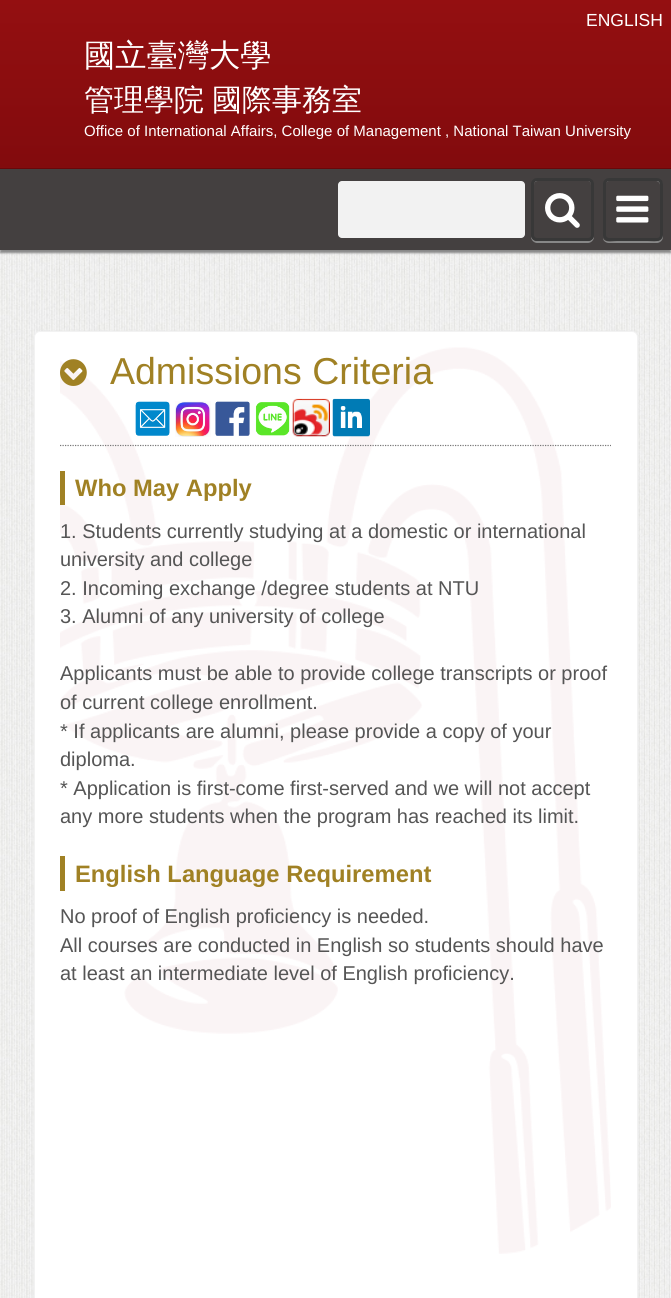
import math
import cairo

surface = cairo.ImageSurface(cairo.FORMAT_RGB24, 671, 1298)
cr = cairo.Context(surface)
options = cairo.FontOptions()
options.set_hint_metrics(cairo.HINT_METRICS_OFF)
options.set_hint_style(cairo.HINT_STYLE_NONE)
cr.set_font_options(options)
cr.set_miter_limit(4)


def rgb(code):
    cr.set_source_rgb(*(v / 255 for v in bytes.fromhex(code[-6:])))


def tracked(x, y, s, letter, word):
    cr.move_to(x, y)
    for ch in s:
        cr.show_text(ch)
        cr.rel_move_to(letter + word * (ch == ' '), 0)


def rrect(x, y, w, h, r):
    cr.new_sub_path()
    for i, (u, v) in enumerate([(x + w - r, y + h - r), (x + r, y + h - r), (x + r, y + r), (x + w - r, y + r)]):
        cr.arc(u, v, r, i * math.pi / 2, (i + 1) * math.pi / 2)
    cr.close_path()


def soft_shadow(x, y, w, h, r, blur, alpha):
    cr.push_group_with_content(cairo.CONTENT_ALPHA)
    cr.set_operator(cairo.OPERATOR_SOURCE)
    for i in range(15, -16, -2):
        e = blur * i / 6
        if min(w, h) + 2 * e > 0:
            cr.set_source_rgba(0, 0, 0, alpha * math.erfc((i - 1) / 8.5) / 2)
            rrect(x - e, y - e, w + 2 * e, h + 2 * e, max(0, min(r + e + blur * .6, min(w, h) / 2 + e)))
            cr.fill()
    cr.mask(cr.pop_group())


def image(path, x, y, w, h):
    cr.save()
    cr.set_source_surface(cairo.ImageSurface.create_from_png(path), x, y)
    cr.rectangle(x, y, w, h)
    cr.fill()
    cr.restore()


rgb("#ffffff")
cr.paint()
image("img/1.png", 0, 250, 671, 1048)
gradient = cairo.LinearGradient(336, 0, 336, 168)
gradient.add_color_stop_rgba(0, 0.58, 0.059, 0.067, 1)
gradient.add_color_stop_rgba(1, 0.51, 0.043, 0.051, 1)
cr.set_source(gradient)
cr.rectangle(0, 0, 671, 168)
cr.fill()
rgb("#888888")
soft_shadow(0, 170, 671, 83, 0, 1, 1)
rgb("#444040")
cr.rectangle(0, 169, 671, 81)
cr.fill()
rgb("#6a0709")
cr.rectangle(0, 168, 671, 1)
cr.fill()
rgb("#f2f2f2")
rrect(338, 181, 187, 57, 4)
cr.fill()
rgb("#878787")
cr.new_path()
cr.move_to(531, 183)
cr.line_to(531, 237)
cr.curve_to(531, 240, 534, 243, 537, 243)
cr.line_to(588, 243)
cr.curve_to(591, 243, 594, 240, 594, 237)
cr.line_to(594, 183)
cr.line_to(594, 226)
cr.curve_to(594, 241, 594, 241, 579, 241)
cr.line_to(546, 241)
cr.curve_to(531, 241, 531, 241, 531, 226)
cr.close_path()
cr.fill()
rgb("#444040")
rrect(531, 178, 63, 63, 6)
cr.fill()
rgb("#878787")
cr.new_path()
cr.move_to(538, 181)
cr.line_to(588, 181)
cr.curve_to(590, 181, 591, 183, 591, 185)
cr.curve_to(591, 178, 584, 180, 579, 180)
cr.line_to(546, 180)
cr.curve_to(541, 180, 534, 178, 534, 185)
cr.curve_to(534, 183, 535, 181, 538, 181)
cr.close_path()
cr.fill()
rrect(532.5, 179.5, 60, 60, 4.5)
rgb("#383838")
cr.set_line_width(3)
cr.stroke()
image("img/2.png", 545, 193, 35, 35)
rgb("#878787")
cr.new_path()
cr.move_to(603, 238)
cr.curve_to(603, 241, 606, 243, 609, 243)
cr.line_to(657, 243)
cr.curve_to(660, 243, 663, 240, 663, 237)
cr.line_to(663, 185)
cr.line_to(662, 182)
cr.line_to(662, 236)
cr.curve_to(661, 243, 653, 241, 648, 241)
cr.line_to(617, 241)
cr.curve_to(612, 241, 605, 243, 603, 238)
cr.close_path()
cr.fill()
cr.new_path()
cr.move_to(609, 181)
cr.line_to(656, 181)
cr.curve_to(658, 181, 660, 183, 660, 185)
cr.curve_to(660, 178, 653, 180, 648, 180)
cr.line_to(617, 180)
cr.curve_to(612, 180, 605, 178, 605, 185)
cr.curve_to(605, 183, 607, 181, 609, 181)
cr.close_path()
cr.fill()
rrect(604.5, 179.5, 57, 60, 4.5)
rgb("#383838")
cr.stroke()
image("img/3.png", 616, 195, 33, 28)
rgb("#e8e8e8")
soft_shadow(34, 331, 604, 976, 6, 1, 1)
rgb("#ffffff")
rrect(34.5, 331.5, 603, 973, 5.5)
cr.fill_preserve()
rgb("#f2f2f2")
cr.set_line_width(1)
cr.stroke()
image("img/4.png", 60, 347, 551, 907)
image("img/5.png", 60, 359, 27, 27)
image("img/6.png", 135, 401, 35, 35)
image("img/7.png", 175, 401, 36, 36)
image("img/8.png", 215, 401, 35, 35)
image("img/9.png", 255, 402, 35, 34)
image("img/10.png", 292, 398, 38, 39)
image("img/11.png", 332, 398, 38, 39)
cr.new_path()
cr.move_to(60, 445.5)
cr.line_to(611, 445.5)
rgb("#777777")
cr.set_line_width(1.2)
cr.set_dash([1.25, 1.25])
cr.stroke()
rgb("#a08124")
cr.rectangle(60, 471, 5, 34)
cr.fill()
cr.rectangle(60, 856, 5, 35)
cr.fill()
cr.select_font_face("Liberation Sans")
cr.set_font_size(17.5)
rgb("#ffffff")
cr.move_to(586, 26)
cr.show_text("ENGLISH")
cr.select_font_face("WenQuanYi Zen Hei Medium")
cr.set_font_size(31.25)
cr.move_to(84, 66)
cr.show_text("國立臺灣大學")
cr.set_font_size(30)
tracked(84, 110, "管理學院 國際事務室", 0, -1)
cr.select_font_face("Liberation Sans")
cr.set_font_size(15)
cr.move_to(84, 136)
cr.show_text("Office of International Affairs, College of Management , National Taiwan University")
cr.set_font_size(37.5)
rgb("#a08124")
cr.move_to(110, 384)
cr.show_text("Admissions Criteria")
cr.select_font_face("Liberation Sans", cairo.FONT_SLANT_NORMAL, cairo.FONT_WEIGHT_BOLD)
cr.set_font_size(23.75)
cr.move_to(75, 496)
cr.show_text("Who May Apply")
cr.select_font_face("Liberation Sans")
cr.set_font_size(20)
rgb("#555555")
for x, y, s in [
    (60, 538, "1. Students currently studying at a domestic or international"),
    (60, 566, "university and college"),
    (60, 595, "2. Incoming exchange /degree students at NTU"),
    (60, 623, "3. Alumni of any university of college"),
    (60, 680, "Applicants must be able to provide college transcripts or proof"),
    (60, 709, "of current college enrollment."),
    (60, 738, "* If applicants are alumni, please provide a copy of your"),
    (60, 766, "diploma."),
    (60, 795, "* Application is first-come first-served and we will not accept"),
    (60, 823, "any more students when the program has reached its limit."),
]:
    cr.move_to(x, y)
    cr.show_text(s)
cr.select_font_face("Liberation Sans", cairo.FONT_SLANT_NORMAL, cairo.FONT_WEIGHT_BOLD)
cr.set_font_size(23.75)
rgb("#a08124")
cr.move_to(75, 882)
cr.show_text("English Language Requirement")
cr.select_font_face("Liberation Sans")
cr.set_font_size(20)
rgb("#555555")
for x, y, s in [
    (60, 923, "No proof of English proficiency is needed."),
    (60, 952, "All courses are conducted in English so students should have"),
    (60, 980, "at least an intermediate level of English proficiency."),
]:
    cr.move_to(x, y)
    cr.show_text(s)
surface.write_to_png("page.png")
